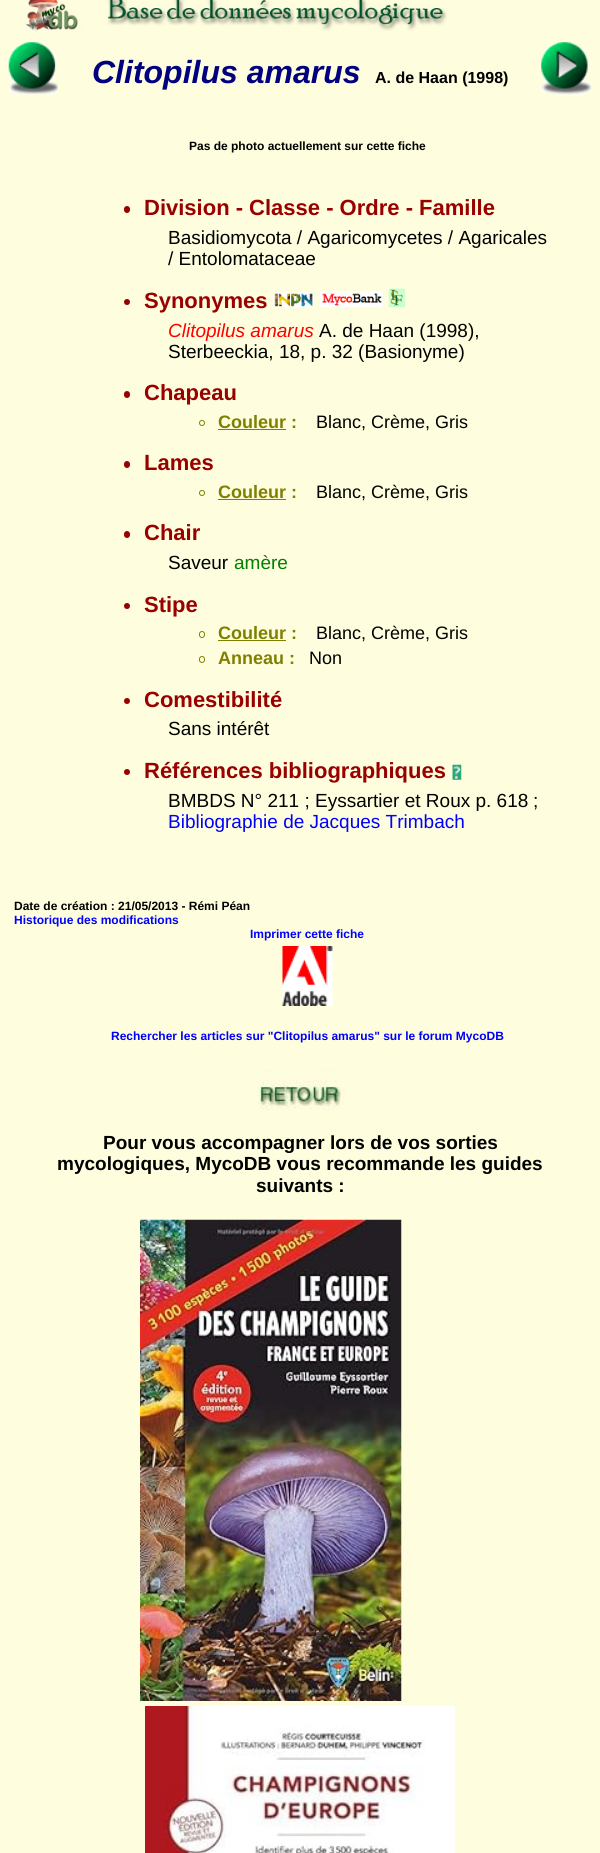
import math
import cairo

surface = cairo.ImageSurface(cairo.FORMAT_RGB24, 600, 1853)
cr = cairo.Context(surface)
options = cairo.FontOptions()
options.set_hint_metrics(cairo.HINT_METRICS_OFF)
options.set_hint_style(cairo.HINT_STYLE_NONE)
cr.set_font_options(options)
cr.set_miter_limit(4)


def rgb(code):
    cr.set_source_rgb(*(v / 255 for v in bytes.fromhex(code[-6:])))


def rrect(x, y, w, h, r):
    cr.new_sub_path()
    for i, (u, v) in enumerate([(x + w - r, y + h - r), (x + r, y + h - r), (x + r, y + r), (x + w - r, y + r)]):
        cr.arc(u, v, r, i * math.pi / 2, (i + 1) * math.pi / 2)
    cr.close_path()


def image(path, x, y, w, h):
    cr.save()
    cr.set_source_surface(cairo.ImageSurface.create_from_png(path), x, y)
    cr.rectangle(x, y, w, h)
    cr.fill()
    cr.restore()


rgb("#fefede")
cr.paint()
image("img/1.png", 25, 0, 422, 31)
image("img/2.png", 7, 42, 51, 53)
image("img/3.png", 541, 42, 52, 54)
rgb("#990000")
rrect(124, 206, 6, 7, 3)
cr.fill()
cr.arc(127, 302, 3, 0, 2 * math.pi)
cr.fill()
image("img/4.png", 273, 292, 41, 16)
image("img/5.png", 320, 291, 63, 17)
image("img/6.png", 388, 288, 17, 20)
rrect(124, 391, 6, 7, 3)
cr.fill()
cr.arc(202, 423, 2.5, 0, 2 * math.pi)
rgb("#808000")
cr.set_line_width(1)
cr.stroke()
cr.rectangle(218, 429, 68, 1)
cr.fill()
rgb("#990000")
rrect(124, 461, 6, 7, 3)
cr.fill()
cr.arc(202, 493, 2.5, 0, 2 * math.pi)
rgb("#808000")
cr.stroke()
cr.rectangle(218, 499, 68, 1)
cr.fill()
rgb("#990000")
rrect(124, 531, 6, 7, 3)
cr.fill()
cr.arc(127, 606, 3, 0, 2 * math.pi)
cr.fill()
rrect(199.5, 631.5, 5, 6, 2.5)
rgb("#808000")
cr.stroke()
cr.rectangle(218, 640, 68, 1)
cr.fill()
rrect(199.5, 656.5, 5, 6, 2.5)
cr.stroke()
rgb("#990000")
cr.arc(127, 701, 3, 0, 2 * math.pi)
cr.fill()
cr.arc(127, 772, 3, 0, 2 * math.pi)
cr.fill()
image("img/7.png", 452, 764, 10, 16)
image("img/8.png", 282, 946, 51, 60)
image("img/9.png", 257, 1070, 88, 40)
image("img/10.png", 140, 1219, 262, 482)
image("img/11.png", 145, 1706, 310, 147)
cr.select_font_face("Liberation Sans", cairo.FONT_SLANT_ITALIC, cairo.FONT_WEIGHT_BOLD)
cr.set_font_size(32)
rgb("#000080")
cr.move_to(92, 83)
cr.show_text("Clitopilus amarus")
cr.select_font_face("Liberation Sans", cairo.FONT_SLANT_NORMAL, cairo.FONT_WEIGHT_BOLD)
cr.set_font_size(16)
rgb("#000000")
cr.move_to(375, 83)
cr.show_text("A. de Haan (1998)")
cr.set_font_size(12)
cr.move_to(189, 150)
cr.show_text("Pas de photo actuellement sur cette fiche")
cr.set_font_size(22)
rgb("#990000")
cr.move_to(144, 215)
cr.show_text("Division - Classe - Ordre - Famille")
cr.select_font_face("Liberation Sans")
cr.set_font_size(19)
rgb("#000000")
cr.move_to(168, 244)
cr.show_text("Basidiomycota / Agaricomycetes / Agaricales")
cr.move_to(168, 265)
cr.show_text("/ Entolomataceae")
cr.select_font_face("Liberation Sans", cairo.FONT_SLANT_NORMAL, cairo.FONT_WEIGHT_BOLD)
cr.set_font_size(22)
rgb("#990000")
cr.move_to(144, 308)
cr.show_text("Synonymes")
cr.select_font_face("Liberation Sans", cairo.FONT_SLANT_ITALIC)
cr.set_font_size(19)
rgb("#ff0000")
cr.move_to(168, 337)
cr.show_text("Clitopilus amarus")
cr.select_font_face("Liberation Sans")
rgb("#000000")
cr.move_to(319, 337)
cr.show_text("A. de Haan (1998),")
cr.move_to(168, 358)
cr.show_text("Sterbeeckia, 18, p. 32 (Basionyme)")
cr.select_font_face("Liberation Sans", cairo.FONT_SLANT_NORMAL, cairo.FONT_WEIGHT_BOLD)
cr.set_font_size(22)
rgb("#990000")
cr.move_to(144, 400)
cr.show_text("Chapeau")
cr.set_font_size(18)
rgb("#808000")
cr.move_to(218, 428)
cr.show_text("Couleur :")
cr.select_font_face("Liberation Sans")
rgb("#000000")
cr.move_to(316, 428)
cr.show_text("Blanc, Crème, Gris")
cr.select_font_face("Liberation Sans", cairo.FONT_SLANT_NORMAL, cairo.FONT_WEIGHT_BOLD)
cr.set_font_size(22)
rgb("#990000")
cr.move_to(144, 470)
cr.show_text("Lames")
cr.set_font_size(18)
rgb("#808000")
cr.move_to(218, 498)
cr.show_text("Couleur :")
cr.select_font_face("Liberation Sans")
rgb("#000000")
cr.move_to(316, 498)
cr.show_text("Blanc, Crème, Gris")
cr.select_font_face("Liberation Sans", cairo.FONT_SLANT_NORMAL, cairo.FONT_WEIGHT_BOLD)
cr.set_font_size(22)
rgb("#990000")
cr.move_to(144, 540)
cr.show_text("Chair")
cr.select_font_face("Liberation Sans")
cr.set_font_size(19)
rgb("#000000")
cr.move_to(168, 569)
cr.show_text("Saveur")
rgb("#008000")
cr.move_to(234, 569)
cr.show_text("amère")
cr.select_font_face("Liberation Sans", cairo.FONT_SLANT_NORMAL, cairo.FONT_WEIGHT_BOLD)
cr.set_font_size(22)
rgb("#990000")
cr.move_to(144, 612)
cr.show_text("Stipe")
cr.set_font_size(18)
rgb("#808000")
cr.move_to(218, 639)
cr.show_text("Couleur :")
cr.select_font_face("Liberation Sans")
rgb("#000000")
cr.move_to(316, 639)
cr.show_text("Blanc, Crème, Gris")
cr.select_font_face("Liberation Sans", cairo.FONT_SLANT_NORMAL, cairo.FONT_WEIGHT_BOLD)
rgb("#808000")
cr.move_to(218, 664)
cr.show_text("Anneau :")
cr.select_font_face("Liberation Sans")
rgb("#000000")
cr.move_to(309, 664)
cr.show_text("Non")
cr.select_font_face("Liberation Sans", cairo.FONT_SLANT_NORMAL, cairo.FONT_WEIGHT_BOLD)
cr.set_font_size(22)
rgb("#990000")
cr.move_to(144, 707)
cr.show_text("Comestibilité")
cr.select_font_face("Liberation Sans")
cr.set_font_size(19)
rgb("#000000")
cr.move_to(168, 735)
cr.show_text("Sans intérêt")
cr.select_font_face("Liberation Sans", cairo.FONT_SLANT_NORMAL, cairo.FONT_WEIGHT_BOLD)
cr.set_font_size(22)
rgb("#990000")
cr.move_to(144, 778)
cr.show_text("Références bibliographiques")
cr.select_font_face("Liberation Sans")
cr.set_font_size(19)
rgb("#000000")
cr.move_to(168, 807)
cr.show_text("BMBDS N° 211 ; Eyssartier et Roux p. 618")
cr.move_to(533, 807)
cr.show_text(";")
rgb("#0000ff")
cr.move_to(168, 828)
cr.show_text("Bibliographie de Jacques Trimbach")
cr.select_font_face("Liberation Sans", cairo.FONT_SLANT_NORMAL, cairo.FONT_WEIGHT_BOLD)
cr.set_font_size(12)
rgb("#000000")
cr.move_to(14, 910)
cr.show_text("Date de création : 21/05/2013 - Rémi Péan")
rgb("#0000ff")
for x, y, s in [
    (14, 924, "Historique des modifications"),
    (250, 938, "Imprimer cette fiche"),
    (111, 1040, "Rechercher les articles sur \"Clitopilus amarus\" sur le forum MycoDB"),
]:
    cr.move_to(x, y)
    cr.show_text(s)
cr.set_font_size(19)
rgb("#000000")
for x, y, s in [
    (103, 1149, "Pour vous accompagner lors de vos sorties"),
    (57, 1170, "mycologiques, MycoDB vous recommande les guides"),
    (256, 1192, "suivants :"),
]:
    cr.move_to(x, y)
    cr.show_text(s)
surface.write_to_png("page.png")
